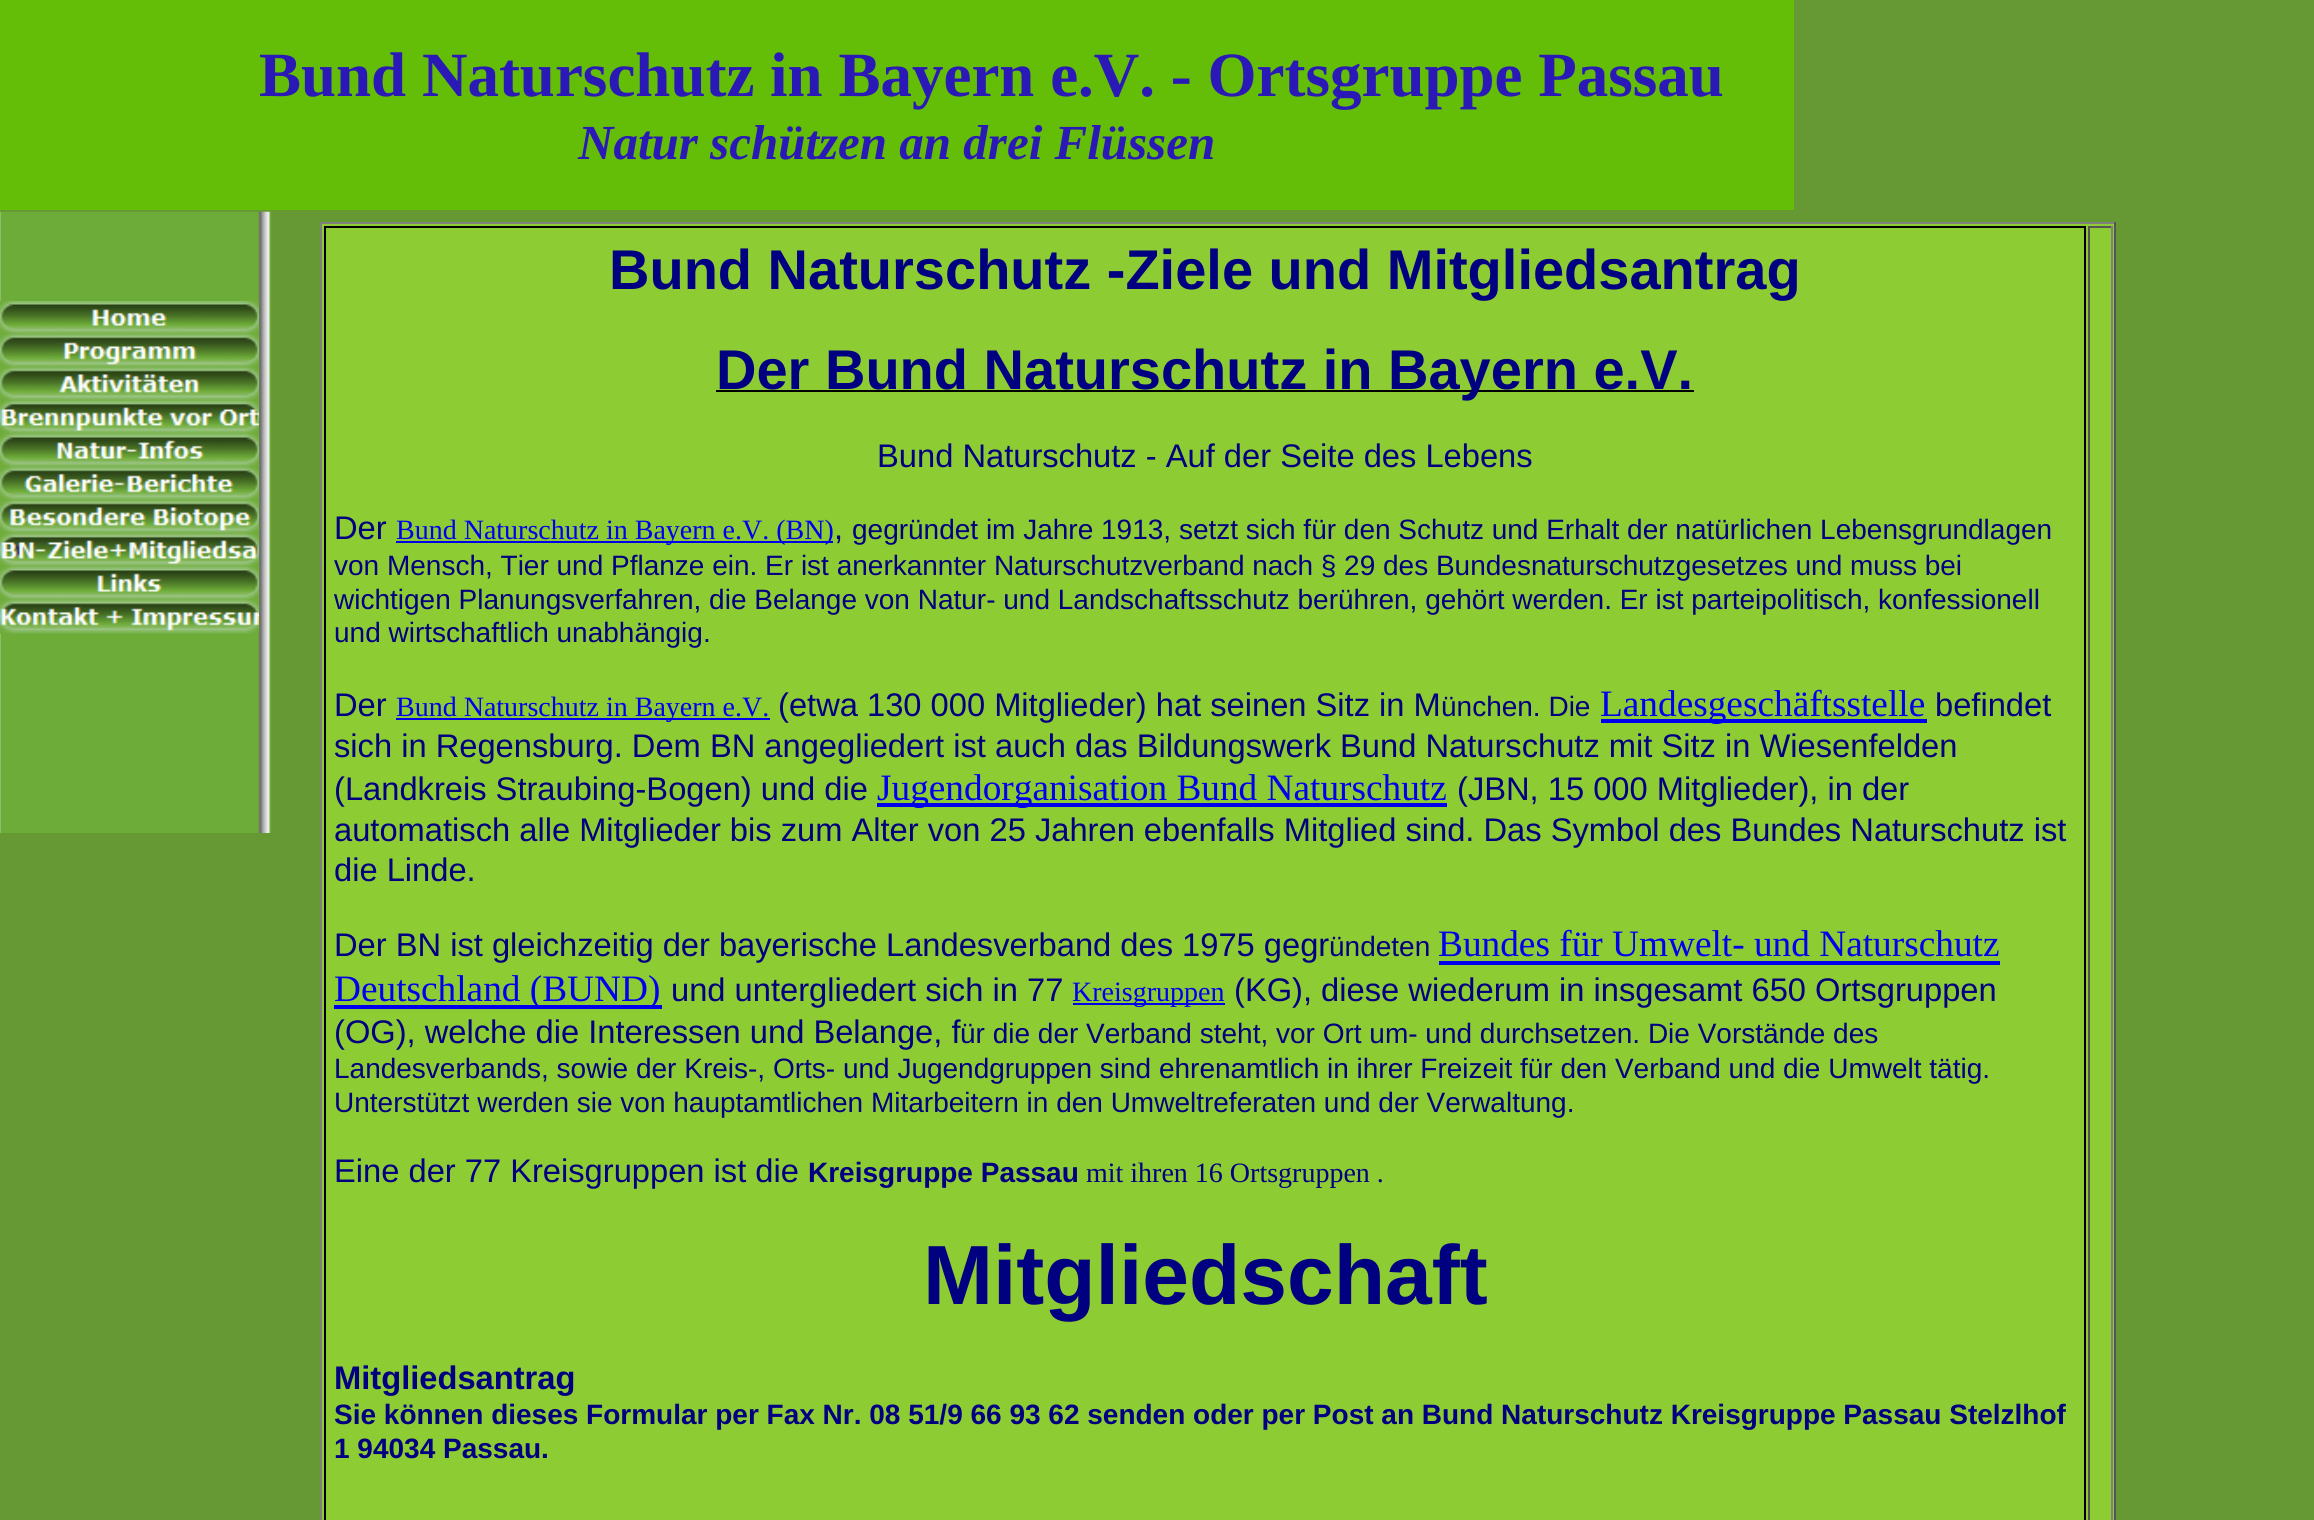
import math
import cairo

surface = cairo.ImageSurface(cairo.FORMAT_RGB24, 2314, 1520)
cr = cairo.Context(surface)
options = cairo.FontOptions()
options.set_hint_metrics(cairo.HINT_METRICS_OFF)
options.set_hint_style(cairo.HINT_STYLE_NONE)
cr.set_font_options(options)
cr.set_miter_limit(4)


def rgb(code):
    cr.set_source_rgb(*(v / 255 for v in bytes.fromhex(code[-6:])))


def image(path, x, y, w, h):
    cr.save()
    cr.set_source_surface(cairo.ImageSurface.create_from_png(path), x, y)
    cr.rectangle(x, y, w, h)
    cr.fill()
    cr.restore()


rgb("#669933")
cr.paint()
rgb("#64bd06")
cr.rectangle(0, 0, 1794, 210)
cr.fill()
image("img/1.png", 0, 211, 272, 90)
image("img/2.png", 0, 301, 272, 532)
image("img/3.png", 0, 301, 259, 34)
image("img/4.png", 0, 334, 259, 34)
image("img/5.png", 0, 367, 259, 34)
image("img/6.png", 0, 400, 259, 34)
image("img/7.png", 0, 434, 259, 34)
image("img/8.png", 0, 467, 259, 34)
image("img/9.png", 0, 500, 259, 34)
image("img/10.png", 0, 533, 259, 34)
image("img/11.png", 0, 567, 259, 34)
image("img/12.png", 0, 600, 259, 34)
for x, y, w, h, color in [
    (322, 224, 1792, 1296, "#8ecc33"),
    (320, 222, 1796, 2, "#808080"),
    (2114, 222, 2, 1298, "#555555"),
    (320, 222, 2, 1298, "#808080"),
]:
    rgb(color)
    cr.rectangle(x, y, w, h)
    cr.fill()
cr.rectangle(325, 227, 1760, 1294)
rgb("#000000")
cr.stroke()
for x, y, w, h, color in [
    (716, 390, 978, 2, "#000000"),
    (396, 541, 437, 2, "#0000ee"),
    (396, 718, 374, 2, "#0000ee"),
    (1601, 719, 326, 4, "#0000ee"),
    (877, 803, 570, 4, "#0000ee"),
    (1439, 961, 561, 4, "#0000ee"),
    (334, 1005, 328, 4, "#0000ee"),
    (1073, 1003, 152, 2, "#0000ee"),
    (2088, 226, 24, 2, "#555555"),
    (2111, 226, 2, 1294, "#808080"),
    (2088, 226, 2, 1294, "#555555"),
]:
    rgb(color)
    cr.rectangle(x, y, w, h)
    cr.fill()
cr.select_font_face("Liberation Serif", cairo.FONT_SLANT_NORMAL, cairo.FONT_WEIGHT_BOLD)
cr.set_font_size(63)
rgb("#2a19b7")
cr.move_to(259, 96)
cr.show_text("Bund Naturschutz in Bayern e.V. - Ortsgruppe Passau")
cr.select_font_face("Liberation Serif", cairo.FONT_SLANT_ITALIC, cairo.FONT_WEIGHT_BOLD)
cr.set_font_size(49)
cr.move_to(578, 159)
cr.show_text("Natur schützen an drei Flüssen")
cr.select_font_face("Liberation Sans", cairo.FONT_SLANT_NORMAL, cairo.FONT_WEIGHT_BOLD)
cr.set_font_size(56)
rgb("#000080")
cr.move_to(609, 289)
cr.show_text("Bund Naturschutz -Ziele und Mitgliedsantrag")
cr.move_to(716, 389)
cr.show_text("Der Bund Naturschutz in Bayern e.V.")
cr.select_font_face("Liberation Sans")
cr.set_font_size(32.67)
cr.move_to(877, 467)
cr.show_text("Bund Naturschutz - Auf der Seite des Lebens")
cr.move_to(334, 539)
cr.show_text("Der")
cr.select_font_face("Liberation Serif")
cr.set_font_size(28)
rgb("#0000ee")
cr.move_to(396, 539)
cr.show_text("Bund Naturschutz in Bayern e.V. (BN)")
cr.select_font_face("Liberation Sans")
cr.set_font_size(32.67)
rgb("#000080")
cr.move_to(834, 539)
cr.show_text(",")
cr.set_font_size(28)
for x, y, s in [
    (852, 539, "gegründet im Jahre 1913, setzt sich für den Schutz und Erhalt der natürlichen Lebensgrundlagen"),
    (334, 575, "von Mensch, Tier und Pflanze ein. Er ist anerkannter Naturschutzverband nach § 29 des Bundesnaturschutzgesetzes und muss bei"),
    (334, 609, "wichtigen Planungsverfahren, die Belange von Natur- und Landschaftsschutz berühren, gehört werden. Er ist parteipolitisch, konfessionell"),
    (334, 642, "und wirtschaftlich unabhängig."),
]:
    cr.move_to(x, y)
    cr.show_text(s)
cr.set_font_size(32.67)
cr.move_to(334, 716)
cr.show_text("Der")
cr.select_font_face("Liberation Serif")
cr.set_font_size(28)
rgb("#0000ee")
cr.move_to(396, 716)
cr.show_text("Bund Naturschutz in Bayern e.V.")
cr.select_font_face("Liberation Sans")
cr.set_font_size(32.67)
rgb("#000080")
cr.move_to(778, 716)
cr.show_text("(etwa 130 000 Mitglieder) hat seinen Sitz in M")
cr.set_font_size(28)
cr.move_to(1441, 716)
cr.show_text("ünchen. Die")
cr.select_font_face("Liberation Serif")
cr.set_font_size(37.3)
rgb("#0000ee")
cr.move_to(1600, 716)
cr.show_text("Landesgeschäftsstelle")
cr.select_font_face("Liberation Sans")
cr.set_font_size(32.67)
rgb("#000080")
for x, y, s in [
    (1935, 716, "befindet"),
    (334, 757, "sich in Regensburg. Dem BN angegliedert ist auch das Bildungswerk Bund Naturschutz mit Sitz in Wiesenfelden"),
    (334, 800, "(Landkreis Straubing-Bogen) und die"),
]:
    cr.move_to(x, y)
    cr.show_text(s)
cr.select_font_face("Liberation Serif")
cr.set_font_size(37.3)
rgb("#0000ee")
cr.move_to(877, 800)
cr.show_text("Jugendorganisation Bund Naturschutz")
cr.select_font_face("Liberation Sans")
cr.set_font_size(32.67)
rgb("#000080")
for x, y, s in [
    (1457, 800, "(JBN, 15 000 Mitglieder), in der"),
    (334, 841, "automatisch alle Mitglieder bis zum Alter von 25 Jahren ebenfalls Mitglied sind. Das Symbol des Bundes Naturschutz ist"),
    (334, 881, "die Linde."),
    (334, 956, "Der BN ist gleichzeitig der bayerische Landesverband des 1975 gegr"),
]:
    cr.move_to(x, y)
    cr.show_text(s)
cr.set_font_size(28)
cr.move_to(1329, 956)
cr.show_text("ündeten")
cr.select_font_face("Liberation Serif")
cr.set_font_size(37.3)
rgb("#0000ee")
cr.move_to(1438, 956)
cr.show_text("Bundes für Umwelt- und Naturschutz")
cr.move_to(334, 1001)
cr.show_text("Deutschland (BUND)")
cr.select_font_face("Liberation Sans")
cr.set_font_size(32.67)
rgb("#000080")
cr.move_to(671, 1001)
cr.show_text("und untergliedert sich in 77")
cr.select_font_face("Liberation Serif")
cr.set_font_size(28)
rgb("#0000ee")
cr.move_to(1072, 1001)
cr.show_text("Kreisgruppen")
cr.select_font_face("Liberation Sans")
cr.set_font_size(32.67)
rgb("#000080")
cr.move_to(1234, 1001)
cr.show_text("(KG), diese wiederum in insgesamt 650 Ortsgruppen")
cr.move_to(334, 1043)
cr.show_text("(OG), welche die Interessen und Belange, f")
cr.set_font_size(28)
for x, y, s in [
    (960, 1043, "ür die der Verband steht, vor Ort um- und durchsetzen. Die Vorstände des"),
    (334, 1078, "Landesverbands, sowie der Kreis-, Orts- und Jugendgruppen sind ehrenamtlich in ihrer Freizeit für den Verband und die Umwelt tätig."),
    (334, 1112, "Unterstützt werden sie von hauptamtlichen Mitarbeitern in den Umweltreferaten und der Verwaltung."),
]:
    cr.move_to(x, y)
    cr.show_text(s)
cr.set_font_size(32.67)
cr.move_to(334, 1182)
cr.show_text("Eine der 77 Kreisgruppen ist die")
cr.select_font_face("Liberation Sans", cairo.FONT_SLANT_NORMAL, cairo.FONT_WEIGHT_BOLD)
cr.set_font_size(28)
cr.move_to(808, 1182)
cr.show_text("Kreisgruppe Passau")
cr.select_font_face("Liberation Serif")
cr.move_to(1086, 1182)
cr.show_text("mit ihren 16 Ortsgruppen .")
cr.select_font_face("Liberation Sans", cairo.FONT_SLANT_NORMAL, cairo.FONT_WEIGHT_BOLD)
cr.set_font_size(84)
cr.move_to(923, 1304)
cr.show_text("Mitgliedschaft")
cr.set_font_size(32.67)
cr.move_to(334, 1389)
cr.show_text("Mitgliedsantrag")
cr.set_font_size(28)
cr.move_to(334, 1424)
cr.show_text("Sie können dieses Formular per Fax Nr. 08 51/9 66 93 62 senden oder per Post an Bund Naturschutz Kreisgruppe Passau Stelzlhof")
cr.move_to(334, 1458)
cr.show_text("1 94034 Passau.")
surface.write_to_png("page.png")
